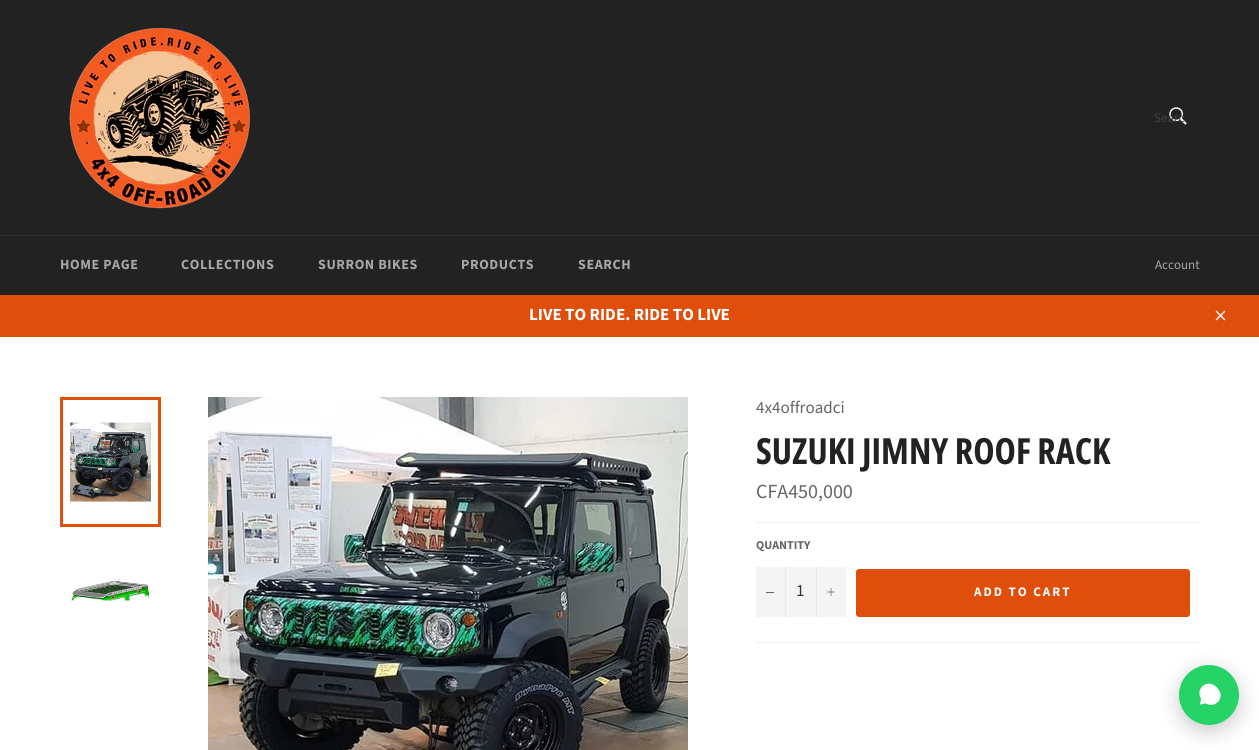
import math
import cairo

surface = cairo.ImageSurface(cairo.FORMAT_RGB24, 1259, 750)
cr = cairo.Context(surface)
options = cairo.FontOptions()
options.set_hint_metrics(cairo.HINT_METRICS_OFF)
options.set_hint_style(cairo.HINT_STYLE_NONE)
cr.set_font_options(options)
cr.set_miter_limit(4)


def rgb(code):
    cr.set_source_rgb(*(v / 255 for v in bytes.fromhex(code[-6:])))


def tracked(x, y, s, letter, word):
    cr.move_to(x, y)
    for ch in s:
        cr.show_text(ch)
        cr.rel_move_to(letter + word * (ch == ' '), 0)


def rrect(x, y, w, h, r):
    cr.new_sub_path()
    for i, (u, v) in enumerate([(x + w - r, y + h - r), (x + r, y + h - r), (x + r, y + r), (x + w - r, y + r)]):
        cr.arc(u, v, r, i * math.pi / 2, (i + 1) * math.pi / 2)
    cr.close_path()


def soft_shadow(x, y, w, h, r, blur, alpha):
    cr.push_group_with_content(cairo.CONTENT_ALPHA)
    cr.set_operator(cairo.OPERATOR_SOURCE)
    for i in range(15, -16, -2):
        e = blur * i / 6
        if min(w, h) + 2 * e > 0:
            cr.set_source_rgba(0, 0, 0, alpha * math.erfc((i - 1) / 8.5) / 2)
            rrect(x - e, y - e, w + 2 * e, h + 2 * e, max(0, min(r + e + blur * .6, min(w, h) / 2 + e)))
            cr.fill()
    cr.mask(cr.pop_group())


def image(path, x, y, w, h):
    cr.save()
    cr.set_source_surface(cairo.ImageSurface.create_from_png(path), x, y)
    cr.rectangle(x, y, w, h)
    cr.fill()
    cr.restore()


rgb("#222222")
cr.paint()
image("img/1.png", 69, 27, 181, 182)
image("img/2.png", 1169, 107, 18, 18)
rgb("#2f2f2f")
cr.rectangle(0, 235, 1259, 1)
cr.fill()
rgb("#e04e0c")
cr.rectangle(0, 295, 1259, 42)
cr.fill()
image("img/3.png", 1215, 310, 11, 11)
rgb("#ffffff")
cr.rectangle(0, 337, 1259, 413)
cr.fill()
image("img/4.png", 70, 422, 81, 80)
cr.rectangle(61.5, 398.5, 98, 127)
rgb("#e04e0c")
cr.set_line_width(3)
cr.stroke()
image("img/5.png", 70, 578, 81, 24)
image("img/6.png", 208, 397, 480, 353)
for x, y, w, h, color in [
    (756, 522, 444, 1, "#f0f0f0"),
    (756, 567, 90, 50, "#f4f4f4"),
    (785, 567, 1, 50, "#e7e7e7"),
    (766, 592, 8, 1, "#666666"),
    (816, 567, 1, 50, "#e7e7e7"),
]:
    rgb(color)
    cr.rectangle(x, y, w, h)
    cr.fill()
image("img/7.png", 827, 588, 8, 8)
rgb("#e04e0c")
rrect(856, 569, 334, 48, 3)
cr.fill()
rgb("#f0f0f0")
cr.rectangle(756, 642, 444, 1)
cr.fill()
rgb("#000000")
soft_shadow(1179, 671, 60, 60, 30, 10, 0.2)
rgb("#25d366")
cr.arc(1209, 695, 30, 0, 2 * math.pi)
cr.fill()
image("img/8.png", 1199, 683, 22, 22)
cr.select_font_face("Source Sans Pro")
cr.set_font_size(13)
rgb("#434343")
cr.move_to(1154, 122)
cr.show_text("Searc")
cr.select_font_face("Source Sans Pro", cairo.FONT_SLANT_NORMAL, cairo.FONT_WEIGHT_BOLD)
cr.set_font_size(14)
rgb("#a7a7a7")
for x, y, s in [
    (60, 269, "HOME PAGE"),
    (181, 269, "COLLECTIONS"),
    (318, 269, "SURRON BIKES"),
    (461, 269, "PRODUCTS"),
    (578, 269, "SEARCH"),
]:
    tracked(x, y, s, 0.6, 0)
cr.select_font_face("Source Sans Pro")
cr.set_font_size(13)
cr.move_to(1155, 269)
cr.show_text("Account")
cr.select_font_face("Source Sans Pro", cairo.FONT_SLANT_NORMAL, cairo.FONT_WEIGHT_BOLD)
cr.set_font_size(17)
rgb("#ffffff")
cr.move_to(529, 320)
cr.show_text("LIVE TO RIDE. RIDE TO LIVE")
cr.select_font_face("Source Sans Pro")
rgb("#666666")
cr.move_to(756, 413)
cr.show_text("4x4offroadci")
cr.select_font_face("Open Sans Condensed", cairo.FONT_SLANT_NORMAL, cairo.FONT_WEIGHT_BOLD)
cr.set_font_size(36)
rgb("#222222")
cr.move_to(756, 464)
cr.show_text("SUZUKI JIMNY ROOF RACK")
cr.select_font_face("Source Sans Pro")
cr.set_font_size(20)
rgb("#666666")
cr.move_to(756, 498)
cr.show_text("CFA450,000")
cr.select_font_face("Source Sans Pro", cairo.FONT_SLANT_NORMAL, cairo.FONT_WEIGHT_BOLD)
cr.set_font_size(12)
cr.move_to(756, 549)
cr.show_text("QUANTITY")
cr.select_font_face("Source Sans Pro")
cr.set_font_size(17)
rgb("#333333")
cr.move_to(796, 596)
cr.show_text("1")
cr.select_font_face("Source Sans Pro", cairo.FONT_SLANT_NORMAL, cairo.FONT_WEIGHT_BOLD)
cr.set_font_size(13)
rgb("#ffffff")
tracked(974, 596, "ADD TO CART", 2, 0)
surface.write_to_png("page.png")
